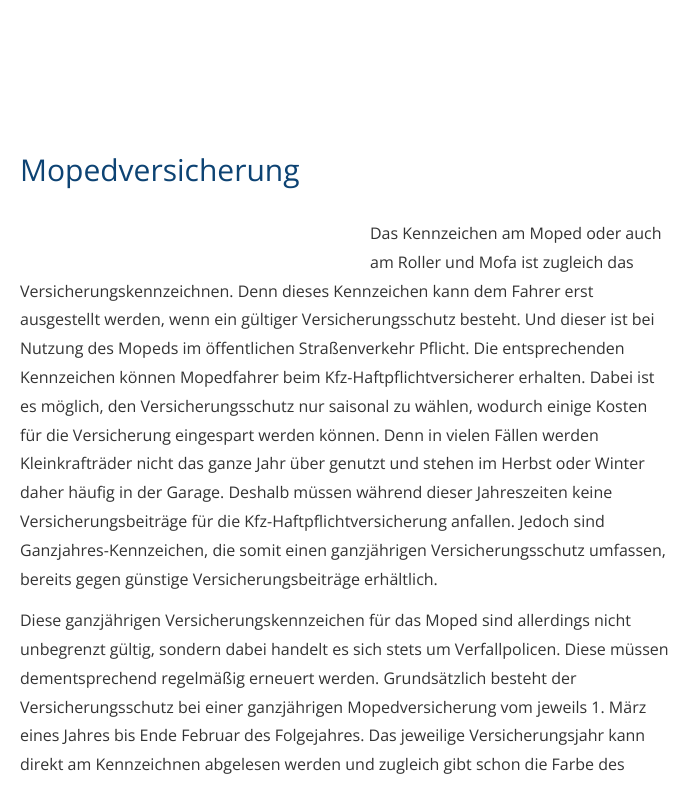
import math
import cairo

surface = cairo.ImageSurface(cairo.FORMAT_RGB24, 689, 794)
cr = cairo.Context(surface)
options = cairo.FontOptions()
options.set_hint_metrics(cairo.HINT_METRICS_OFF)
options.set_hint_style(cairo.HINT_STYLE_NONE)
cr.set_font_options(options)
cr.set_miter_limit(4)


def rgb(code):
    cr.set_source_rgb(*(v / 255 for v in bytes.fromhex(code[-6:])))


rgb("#ffffff")
cr.paint()
cr.select_font_face("Open Sans")
cr.set_font_size(30)
rgb("#0d4373")
cr.move_to(20, 181)
cr.show_text("Mopedversicherung")
cr.set_font_size(16)
rgb("#333333")
for x, y, s in [
    (370, 239, "Das Kennzeichen am Moped oder auch"),
    (370, 268, "am Roller und Mofa ist zugleich das"),
    (20, 297, "Versicherungskennzeichnen. Denn dieses Kennzeichen kann dem Fahrer erst"),
    (20, 325, "ausgestellt werden, wenn ein gültiger Versicherungsschutz besteht. Und dieser ist bei"),
    (20, 354, "Nutzung des Mopeds im öffentlichen Straßenverkehr Pflicht. Die entsprechenden"),
    (20, 383, "Kennzeichen können Mopedfahrer beim Kfz-Haftpflichtversicherer erhalten. Dabei ist"),
    (20, 412, "es möglich, den Versicherungsschutz nur saisonal zu wählen, wodurch einige Kosten"),
    (20, 441, "für die Versicherung eingespart werden können. Denn in vielen Fällen werden"),
    (20, 469, "Kleinkrafträder nicht das ganze Jahr über genutzt und stehen im Herbst oder Winter"),
    (20, 498, "daher häufig in der Garage. Deshalb müssen während dieser Jahreszeiten keine"),
    (20, 527, "Versicherungsbeiträge für die Kfz-Haftpflichtversicherung anfallen. Jedoch sind"),
    (20, 556, "Ganzjahres-Kennzeichen, die somit einen ganzjährigen Versicherungsschutz umfassen,"),
    (20, 585, "bereits gegen günstige Versicherungsbeiträge erhältlich."),
    (20, 626, "Diese ganzjährigen Versicherungskennzeichen für das Moped sind allerdings nicht"),
    (20, 655, "unbegrenzt gültig, sondern dabei handelt es sich stets um Verfallpolicen. Diese müssen"),
    (20, 684, "dementsprechend regelmäßig erneuert werden. Grundsätzlich besteht der"),
    (20, 713, "Versicherungsschutz bei einer ganzjährigen Mopedversicherung vom jeweils 1. März"),
    (20, 741, "eines Jahres bis Ende Februar des Folgejahres. Das jeweilige Versicherungsjahr kann"),
    (20, 770, "direkt am Kennzeichnen abgelesen werden und zugleich gibt schon die Farbe des"),
]:
    cr.move_to(x, y)
    cr.show_text(s)
surface.write_to_png("page.png")
